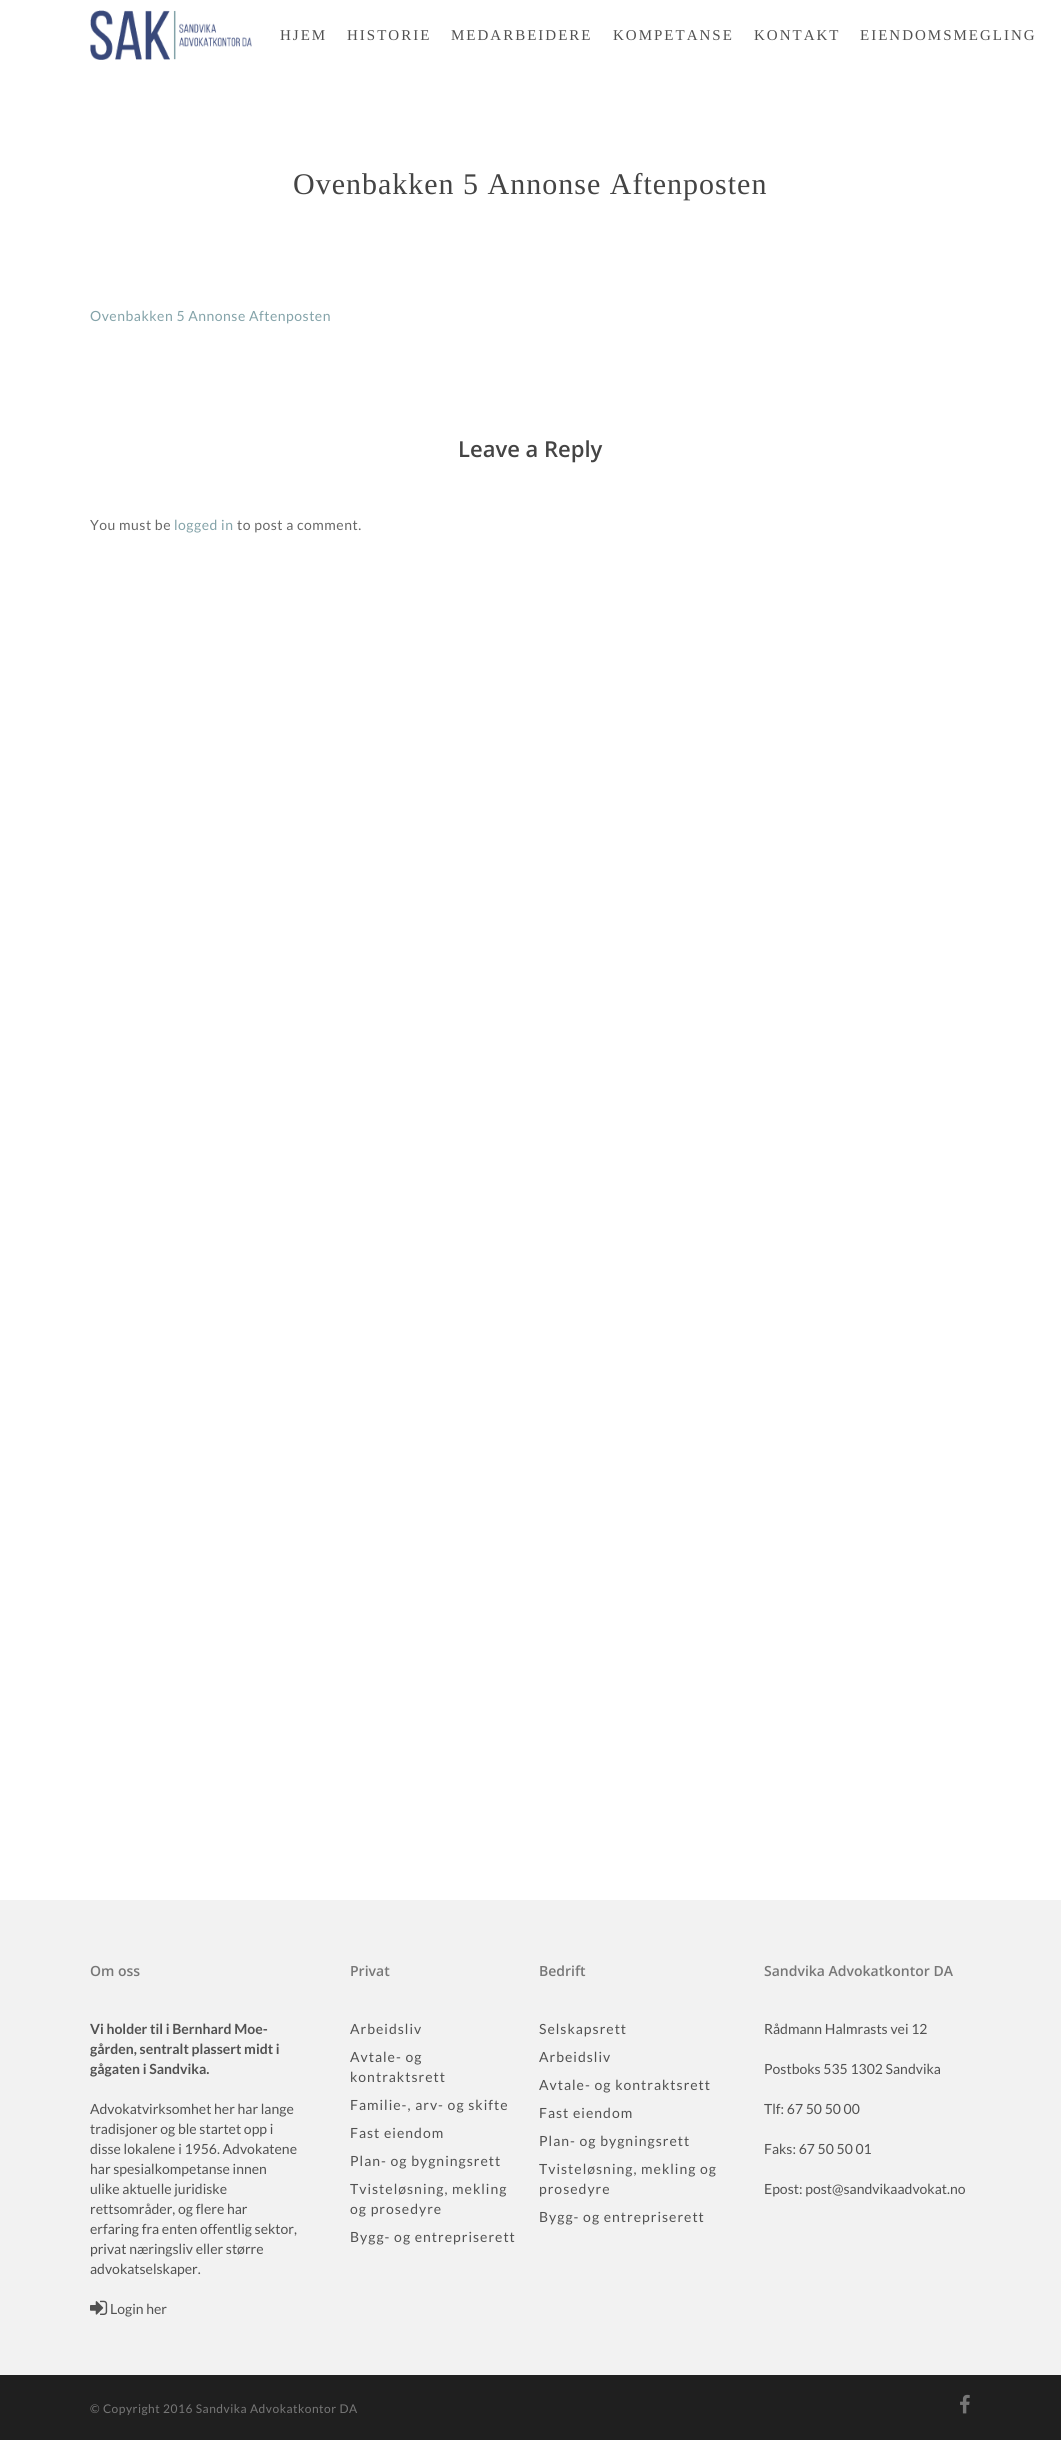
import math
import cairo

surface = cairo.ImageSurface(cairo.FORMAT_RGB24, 1061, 2440)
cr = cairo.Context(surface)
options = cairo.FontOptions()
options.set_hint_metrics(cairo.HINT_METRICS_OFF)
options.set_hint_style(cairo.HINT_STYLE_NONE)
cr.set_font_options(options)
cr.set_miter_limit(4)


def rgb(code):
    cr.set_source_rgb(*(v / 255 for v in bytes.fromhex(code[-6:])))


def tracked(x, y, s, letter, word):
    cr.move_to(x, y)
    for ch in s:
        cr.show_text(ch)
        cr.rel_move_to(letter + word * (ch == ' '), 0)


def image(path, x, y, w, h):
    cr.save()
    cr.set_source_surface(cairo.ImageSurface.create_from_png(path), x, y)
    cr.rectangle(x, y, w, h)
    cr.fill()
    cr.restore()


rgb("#ffffff")
cr.paint()
image("img/1.png", 90, 10, 162, 50)
rgb("#f2f2f2")
cr.rectangle(0, 1900, 1061, 475)
cr.fill()
image("img/2.png", 90, 2300, 18, 15)
rgb("#1f1f1f")
cr.rectangle(0, 2375, 1061, 65)
cr.fill()
image("img/3.png", 960, 2394, 10, 20)
cr.select_font_face("Liberation Serif")
cr.set_font_size(15)
rgb("#515151")
for x, y, s in [
    (280, 40, "HJEM"),
    (347, 40, "HISTORIE"),
    (451, 40, "MEDARBEIDERE"),
    (613, 40, "KOMPETANSE"),
    (754, 40, "KONTAKT"),
    (860, 40, "EIENDOMSMEGLING"),
]:
    tracked(x, y, s, 2, 0)
cr.set_font_size(30)
rgb("#444444")
tracked(293, 194, "Ovenbakken 5 Annonse Aftenposten", 1, 0)
cr.select_font_face("Lato")
cr.set_font_size(14)
rgb("#84a3a9")
tracked(90, 321, "Ovenbakken 5 Annonse Aftenposten", 0.5, 0)
cr.select_font_face("Open Sans SemiBold")
cr.set_font_size(22)
rgb("#444444")
cr.move_to(458, 457)
cr.show_text("Leave a Reply")
cr.select_font_face("Lato")
cr.set_font_size(14)
rgb("#676767")
tracked(90, 530, "You must be", 0.5, 0)
rgb("#84a3a9")
tracked(174, 530, "logged in", 0.5, 0)
rgb("#676767")
tracked(237, 530, "to post a comment.", 0.5, 0)
cr.select_font_face("Open Sans SemiBold")
rgb("#777777")
cr.move_to(90, 1976)
cr.show_text("Om oss")
cr.select_font_face("Lato", cairo.FONT_SLANT_NORMAL, cairo.FONT_WEIGHT_BOLD)
rgb("#515151")
for x, y, s in [
    (90, 2034, "Vi holder til i Bernhard Moe-"),
    (90, 2054, "gården, sentralt plassert midt i"),
    (90, 2074, "gågaten i Sandvika."),
]:
    cr.move_to(x, y)
    cr.show_text(s)
cr.select_font_face("Lato")
for x, y, s in [
    (90, 2114, "Advokatvirksomhet her har lange"),
    (90, 2134, "tradisjoner og ble startet opp i"),
    (90, 2154, "disse lokalene i 1956. Advokatene"),
    (90, 2174, "har spesialkompetanse innen"),
    (90, 2194, "ulike aktuelle juridiske"),
    (90, 2214, "rettsområder, og flere har"),
    (90, 2234, "erfaring fra enten offentlig sektor,"),
    (90, 2254, "privat næringsliv eller større"),
    (90, 2274, "advokatselskaper."),
    (110, 2314, "Login her"),
]:
    cr.move_to(x, y)
    cr.show_text(s)
cr.select_font_face("Open Sans SemiBold")
rgb("#777777")
cr.move_to(350, 1976)
cr.show_text("Privat")
cr.select_font_face("Lato")
rgb("#515151")
for x, y, s in [
    (350, 2034, "Arbeidsliv"),
    (350, 2062, "Avtale- og"),
    (350, 2082, "kontraktsrett"),
    (350, 2110, "Familie-, arv- og skifte"),
    (350, 2138, "Fast eiendom"),
    (350, 2166, "Plan- og bygningsrett"),
    (350, 2194, "Tvisteløsning, mekling"),
    (350, 2214, "og prosedyre"),
    (350, 2242, "Bygg- og entrepriserett"),
]:
    tracked(x, y, s, 1, 0)
cr.select_font_face("Open Sans SemiBold")
rgb("#777777")
cr.move_to(539, 1976)
cr.show_text("Bedrift")
cr.select_font_face("Lato")
rgb("#515151")
for x, y, s in [
    (539, 2034, "Selskapsrett"),
    (539, 2062, "Arbeidsliv"),
    (539, 2090, "Avtale- og kontraktsrett"),
    (539, 2118, "Fast eiendom"),
    (539, 2146, "Plan- og bygningsrett"),
    (539, 2174, "Tvisteløsning, mekling og"),
    (539, 2194, "prosedyre"),
    (539, 2222, "Bygg- og entrepriserett"),
]:
    tracked(x, y, s, 1, 0)
cr.select_font_face("Open Sans SemiBold")
rgb("#777777")
cr.move_to(764, 1976)
cr.show_text("Sandvika Advokatkontor DA")
cr.select_font_face("Lato")
rgb("#515151")
for x, y, s in [
    (764, 2034, "Rådmann Halmrasts vei 12"),
    (764, 2074, "Postboks 535 1302 Sandvika"),
    (764, 2114, "Tlf: 67 50 50 00"),
    (764, 2154, "Faks: 67 50 50 01"),
    (764, 2194, "Epost: post@sandvikaadvokat.no"),
]:
    cr.move_to(x, y)
    cr.show_text(s)
cr.set_font_size(12)
rgb("#777777")
tracked(90, 2413, "© Copyright 2016 Sandvika Advokatkontor DA", 0.5, 0)
surface.write_to_png("page.png")
